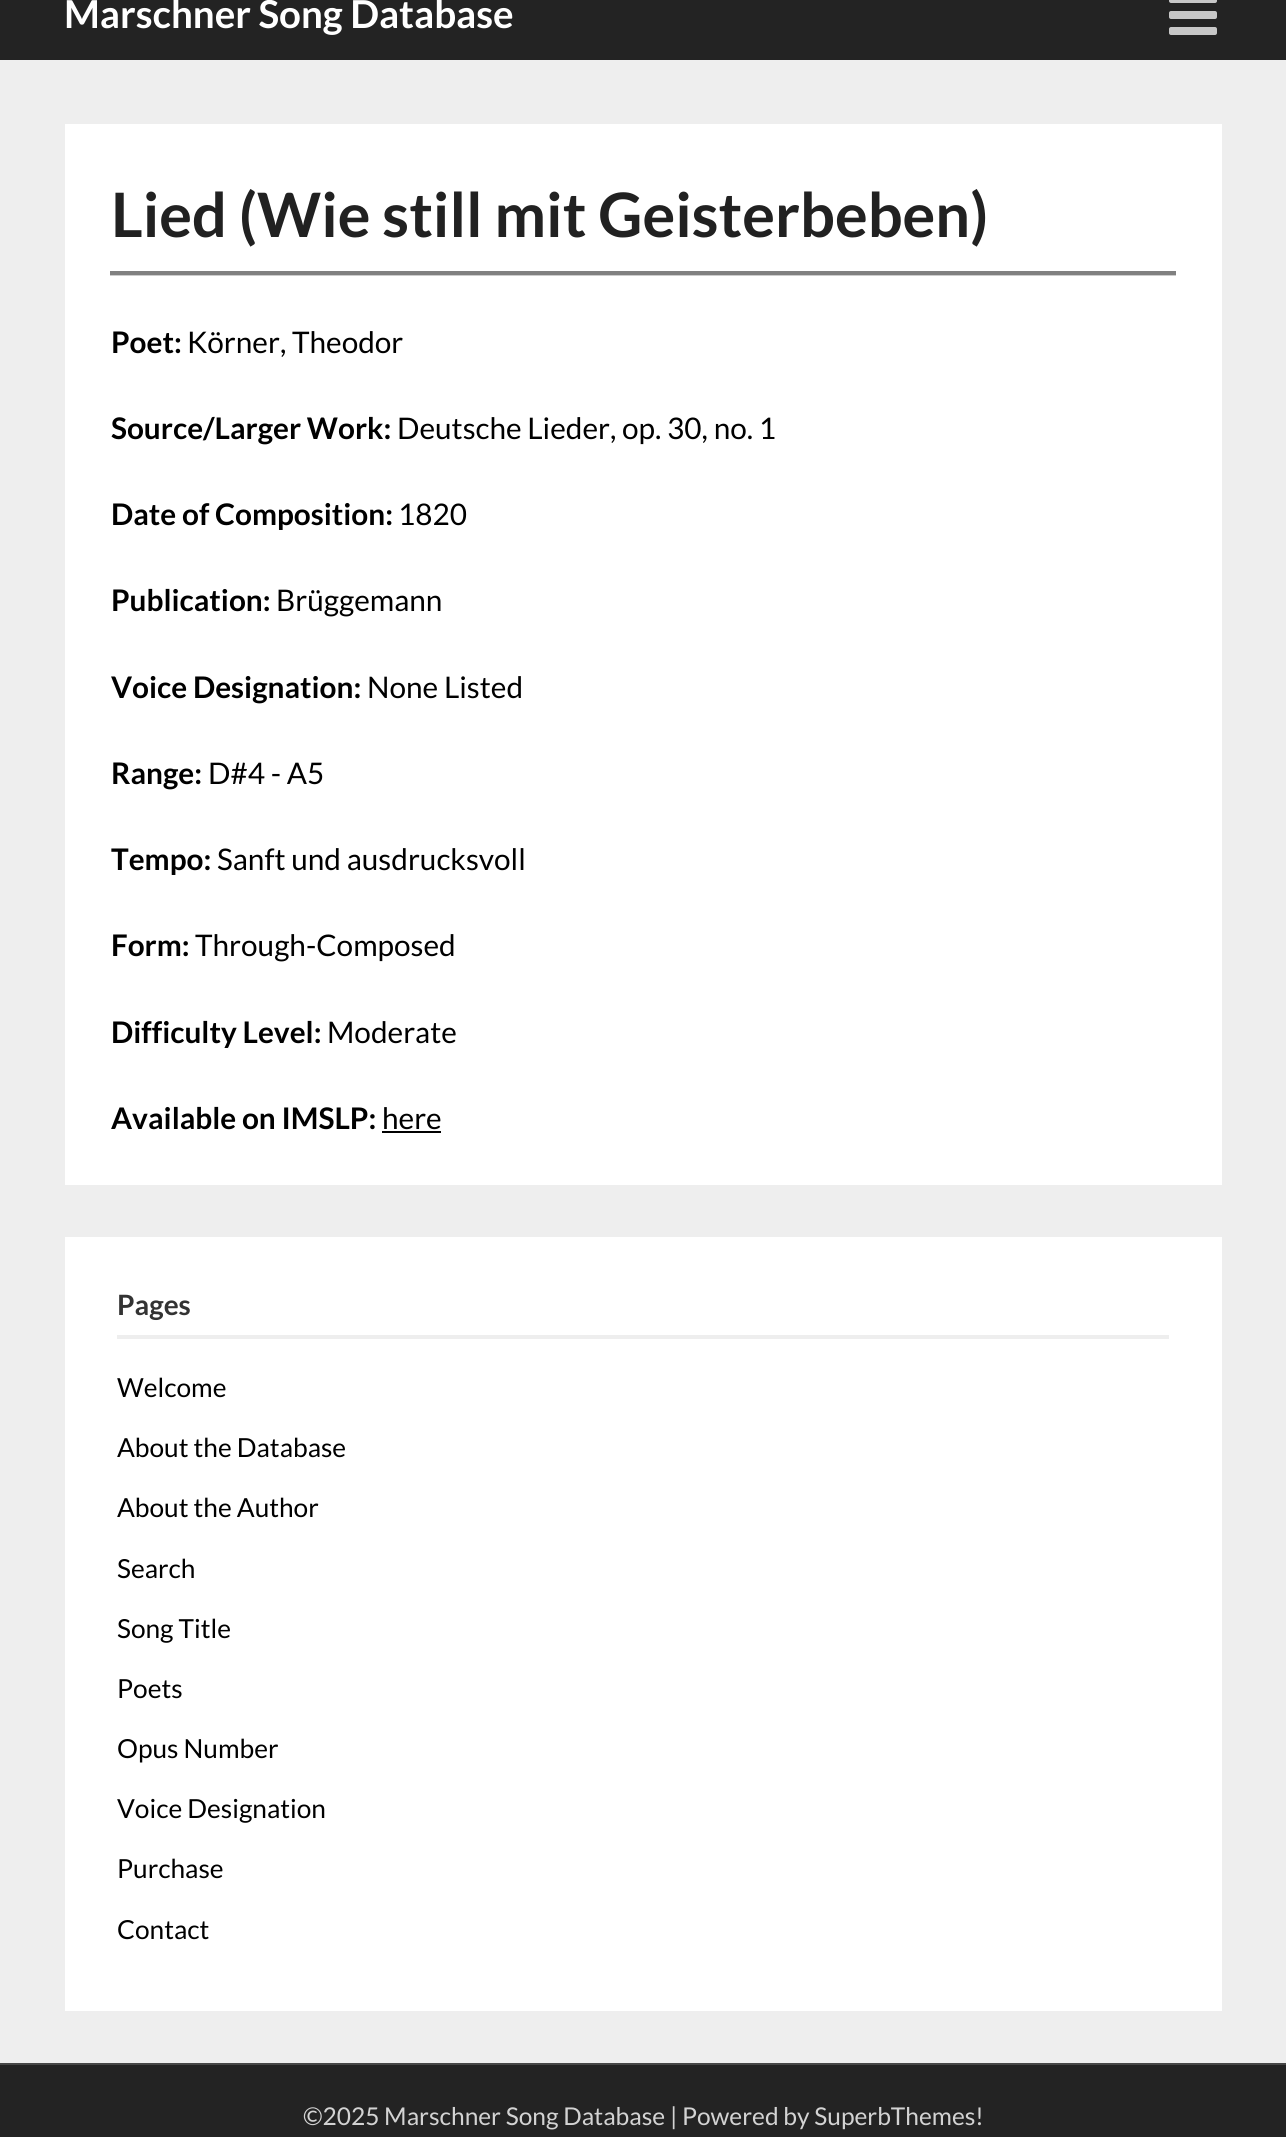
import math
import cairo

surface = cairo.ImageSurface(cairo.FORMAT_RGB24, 1286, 2137)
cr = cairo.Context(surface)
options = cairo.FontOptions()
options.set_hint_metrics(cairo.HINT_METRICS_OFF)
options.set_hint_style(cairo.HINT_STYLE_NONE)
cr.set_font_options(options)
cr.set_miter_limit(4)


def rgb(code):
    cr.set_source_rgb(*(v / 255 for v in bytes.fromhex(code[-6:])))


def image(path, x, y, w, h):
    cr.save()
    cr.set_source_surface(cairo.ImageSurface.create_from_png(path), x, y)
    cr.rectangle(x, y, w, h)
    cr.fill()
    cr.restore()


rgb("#eeeeee")
cr.paint()
rgb("#232323")
cr.rectangle(0, 0, 1286, 60)
cr.fill()
image("img/1.png", 1169, 0, 48, 35)
for x, y, w, h, color in [
    (65, 124, 1157, 1061, "#ffffff"),
    (110, 275, 1066, 1, "#cccccc"),
    (110, 271, 1066, 4, "#808080"),
    (382, 1131, 59, 2, "#000000"),
    (65, 1237, 1157, 774, "#ffffff"),
    (117, 1335, 1052, 4, "#eeeeee"),
    (0, 2065, 1286, 72, "#232323"),
    (0, 2063, 1286, 2, "#464646"),
]:
    rgb(color)
    cr.rectangle(x, y, w, h)
    cr.fill()
cr.select_font_face("Lato", cairo.FONT_SLANT_NORMAL, cairo.FONT_WEIGHT_BOLD)
cr.set_font_size(38.5)
rgb("#ffffff")
cr.move_to(64, 28)
cr.show_text("Marschner Song Database")
cr.set_font_size(61.25)
rgb("#212121")
cr.move_to(111, 237)
cr.show_text("Lied (Wie still mit Geisterbeben)")
cr.set_font_size(29.75)
rgb("#000000")
cr.move_to(111, 353)
cr.show_text("Poet:")
cr.select_font_face("Lato")
cr.move_to(187, 353)
cr.show_text("Körner, Theodor")
cr.select_font_face("Lato", cairo.FONT_SLANT_NORMAL, cairo.FONT_WEIGHT_BOLD)
cr.move_to(111, 439)
cr.show_text("Source/Larger Work:")
cr.select_font_face("Lato")
cr.move_to(397, 439)
cr.show_text("Deutsche Lieder, op. 30, no. 1")
cr.select_font_face("Lato", cairo.FONT_SLANT_NORMAL, cairo.FONT_WEIGHT_BOLD)
cr.move_to(111, 525)
cr.show_text("Date of Composition:")
cr.select_font_face("Lato")
cr.move_to(398, 525)
cr.show_text("1820")
cr.select_font_face("Lato", cairo.FONT_SLANT_NORMAL, cairo.FONT_WEIGHT_BOLD)
cr.move_to(111, 611)
cr.show_text("Publication:")
cr.select_font_face("Lato")
cr.move_to(276, 611)
cr.show_text("Brüggemann")
cr.select_font_face("Lato", cairo.FONT_SLANT_NORMAL, cairo.FONT_WEIGHT_BOLD)
cr.move_to(111, 698)
cr.show_text("Voice Designation:")
cr.select_font_face("Lato")
cr.move_to(367, 698)
cr.show_text("None Listed")
cr.select_font_face("Lato", cairo.FONT_SLANT_NORMAL, cairo.FONT_WEIGHT_BOLD)
cr.move_to(111, 784)
cr.show_text("Range:")
cr.select_font_face("Lato")
cr.move_to(208, 784)
cr.show_text("D#4 - A5")
cr.select_font_face("Lato", cairo.FONT_SLANT_NORMAL, cairo.FONT_WEIGHT_BOLD)
cr.move_to(111, 870)
cr.show_text("Tempo:")
cr.select_font_face("Lato")
cr.move_to(217, 870)
cr.show_text("Sanft und ausdrucksvoll")
cr.select_font_face("Lato", cairo.FONT_SLANT_NORMAL, cairo.FONT_WEIGHT_BOLD)
cr.move_to(111, 956)
cr.show_text("Form:")
cr.select_font_face("Lato")
cr.move_to(195, 956)
cr.show_text("Through-Composed")
cr.select_font_face("Lato", cairo.FONT_SLANT_NORMAL, cairo.FONT_WEIGHT_BOLD)
cr.move_to(111, 1043)
cr.show_text("Difficulty Level:")
cr.select_font_face("Lato")
cr.move_to(327, 1043)
cr.show_text("Moderate")
cr.select_font_face("Lato", cairo.FONT_SLANT_NORMAL, cairo.FONT_WEIGHT_BOLD)
cr.move_to(111, 1129)
cr.show_text("Available on IMSLP:")
cr.select_font_face("Lato")
cr.move_to(382, 1129)
cr.show_text("here")
cr.select_font_face("Lato", cairo.FONT_SLANT_NORMAL, cairo.FONT_WEIGHT_BOLD)
cr.set_font_size(28)
rgb("#333333")
cr.move_to(117, 1315)
cr.show_text("Pages")
cr.select_font_face("Lato")
cr.set_font_size(26.25)
rgb("#000000")
for x, y, s in [
    (117, 1397, "Welcome"),
    (117, 1457, "About the Database"),
    (117, 1517, "About the Author"),
    (117, 1578, "Search"),
    (117, 1638, "Song Title"),
    (117, 1698, "Poets"),
    (117, 1758, "Opus Number"),
    (117, 1818, "Voice Designation"),
    (117, 1878, "Purchase"),
    (117, 1939, "Contact"),
]:
    cr.move_to(x, y)
    cr.show_text(s)
cr.set_font_size(24.5)
rgb("#d3d3d3")
cr.move_to(303, 2125)
cr.show_text("©2025 Marschner Song Database | Powered by SuperbThemes!")
surface.write_to_png("page.png")
